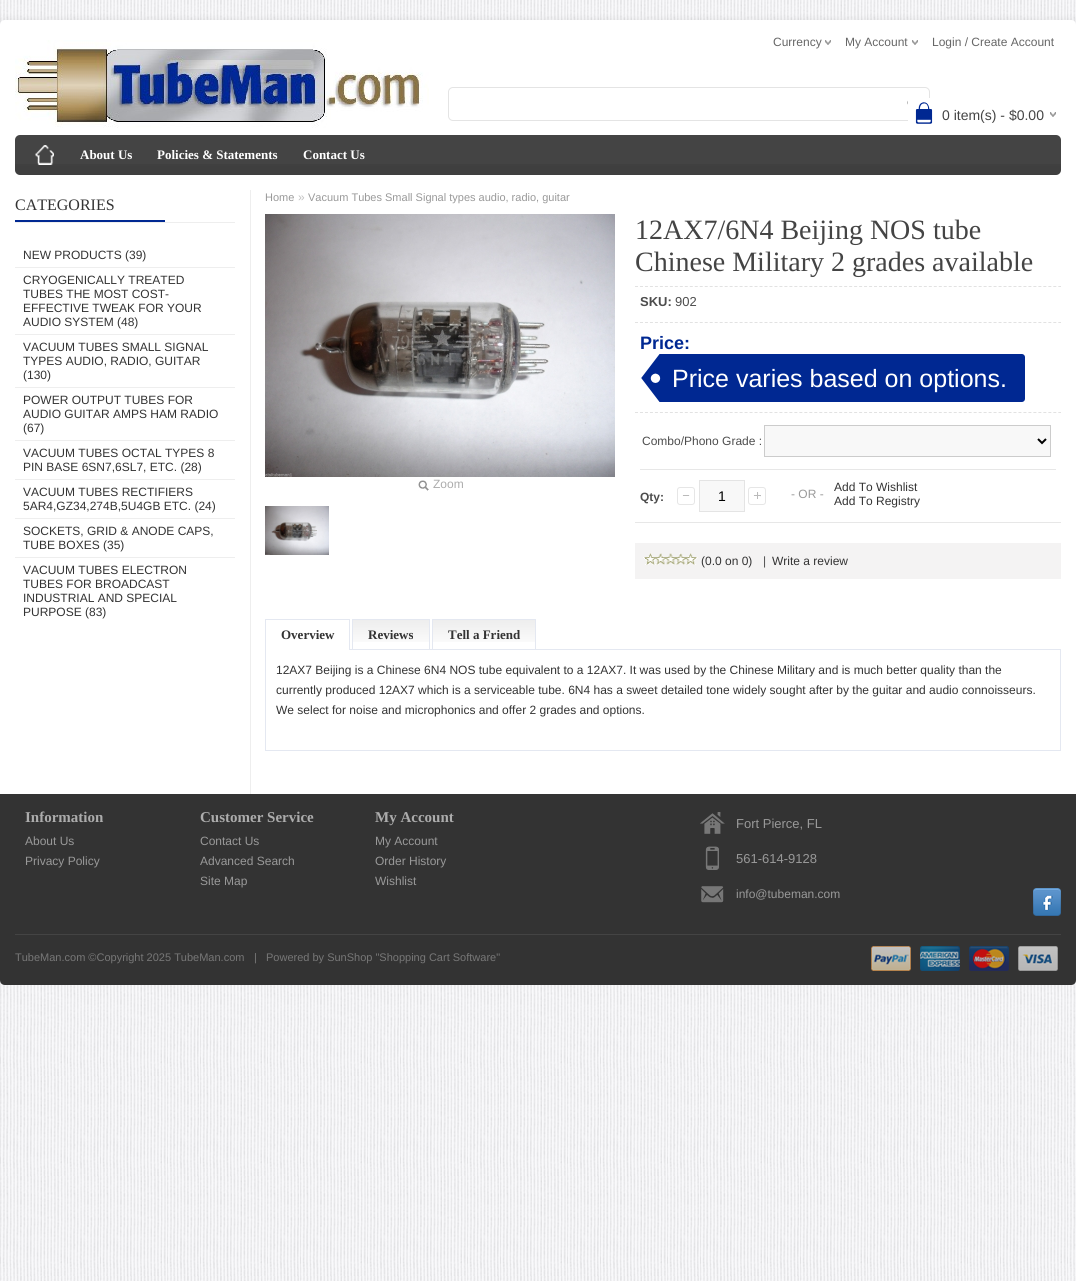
import math
import cairo

surface = cairo.ImageSurface(cairo.FORMAT_RGB24, 1076, 1281)
cr = cairo.Context(surface)
options = cairo.FontOptions()
options.set_hint_metrics(cairo.HINT_METRICS_OFF)
options.set_hint_style(cairo.HINT_STYLE_NONE)
cr.set_font_options(options)
cr.set_miter_limit(4)


def rgb(code):
    cr.set_source_rgb(*(v / 255 for v in bytes.fromhex(code[-6:])))


def rrect(x, y, w, h, r):
    cr.new_sub_path()
    for i, (u, v) in enumerate([(x + w - r, y + h - r), (x + r, y + h - r), (x + r, y + r), (x + w - r, y + r)]):
        cr.arc(u, v, r, i * math.pi / 2, (i + 1) * math.pi / 2)
    cr.close_path()


def soft_shadow(x, y, w, h, r, blur, alpha):
    cr.push_group_with_content(cairo.CONTENT_ALPHA)
    cr.set_operator(cairo.OPERATOR_SOURCE)
    for i in range(15, -16, -2):
        e = blur * i / 6
        if min(w, h) + 2 * e > 0:
            cr.set_source_rgba(0, 0, 0, alpha * math.erfc((i - 1) / 8.5) / 2)
            rrect(x - e, y - e, w + 2 * e, h + 2 * e, max(0, min(r + e + blur * .6, min(w, h) / 2 + e)))
            cr.fill()
    cr.mask(cr.pop_group())


def image(path, x, y, w, h):
    cr.save()
    cr.set_source_surface(cairo.ImageSurface.create_from_png(path), x, y)
    cr.rectangle(x, y, w, h)
    cr.fill()
    cr.restore()


rgb("#f8f8fa")
cr.paint()
image("img/1.png", 0, 0, 1076, 1281)
rgb("#000000")
soft_shadow(0, 20, 1076, 774, 5, 4, 0.08)
rgb("#ffffff")
cr.new_path()
cr.move_to(5, 20)
cr.line_to(1071, 20)
cr.curve_to(1074, 20, 1076, 22, 1076, 25)
cr.line_to(1076, 794)
cr.line_to(0, 794)
cr.line_to(0, 25)
cr.curve_to(0, 22, 2, 20, 5, 20)
cr.close_path()
cr.fill()
image("img/2.png", 15, 40, 414, 88)
image("img/3.png", 825, 40, 6, 5)
image("img/3.png", 912, 40, 6, 5)
rrect(448.5, 87.5, 481, 33, 4.5)
rgb("#e4e4e4")
cr.set_line_width(1)
cr.stroke()
image("img/4.png", 907, 100, 1, 5)
rgb("#002892")
cr.rectangle(915, 102, 18, 22)
cr.fill()
image("img/5.png", 908, 98, 32, 32)
image("img/3.png", 1050, 112, 6, 5)
rgb("#444444")
rrect(15, 135, 1046, 40, 5)
cr.fill()
image("img/6.png", 15, 164, 1046, 11)
image("img/7.png", 35, 145, 19, 20)
for x, y, w, h, color in [
    (250, 190, 1, 604, "#eeeeee"),
    (15, 222, 220, 1, "#eeeeee"),
    (15, 220, 150, 2, "#002892"),
    (15, 267, 220, 1, "#eeeeee"),
    (15, 334, 220, 1, "#eeeeee"),
    (15, 387, 220, 1, "#eeeeee"),
    (15, 440, 220, 1, "#eeeeee"),
    (15, 479, 220, 1, "#eeeeee"),
    (15, 518, 220, 1, "#eeeeee"),
    (15, 557, 220, 1, "#eeeeee"),
]:
    rgb(color)
    cr.rectangle(x, y, w, h)
    cr.fill()
image("img/8.png", 265, 214, 350, 263)
image("img/9.png", 418, 480, 11, 11)
image("img/10.png", 265, 506, 64, 49)
cr.new_path()
cr.move_to(635, 286.5)
cr.line_to(1061, 286.5)
rgb("#e2e2e2")
cr.set_dash([3, 1.98])
cr.stroke()
cr.new_path()
cr.move_to(635, 322.5)
cr.line_to(1061, 322.5)
cr.stroke()
cr.new_path()
cr.move_to(635, 412.5)
cr.line_to(1061, 412.5)
cr.stroke()
rgb("#002892")
cr.new_path()
cr.move_to(640, 354)
cr.line_to(1022, 354)
cr.curve_to(1023.5, 354, 1025, 355.5, 1025, 357)
cr.line_to(1025, 399)
cr.curve_to(1025, 400.5, 1023.5, 402, 1022, 402)
cr.line_to(640, 402)
cr.close_path()
cr.fill()
image("img/11.png", 640, 354, 21, 48)
rgb("#e7e7e7")
cr.rectangle(635, 522, 426, 1)
cr.fill()
cr.rectangle(640, 469, 416, 1)
cr.fill()
rgb("#f8f8f8")
cr.rectangle(764.5, 425.5, 286, 31)
cr.fill_preserve()
rgb("#cccccc")
cr.set_dash([])
cr.stroke()
cr.new_path()
cr.move_to(1038, 439)
cr.line_to(1042, 443)
cr.line_to(1046, 439)
rgb("#000000")
cr.set_line_width(2)
cr.stroke()
image("img/12.png", 682, 495, 8, 1)
rrect(677.5, 487.5, 17, 17, 2.5)
rgb("#e6e6e6")
cr.set_line_width(1)
cr.stroke()
rgb("#f8f8f8")
cr.rectangle(699.5, 480.5, 45, 31)
cr.fill_preserve()
rgb("#e4e4e4")
cr.stroke()
image("img/13.png", 753, 492, 8, 7)
rrect(748.5, 487.5, 17, 17, 2.5)
rgb("#e6e6e6")
cr.stroke()
rgb("#f4f3f3")
cr.rectangle(635, 543, 426, 36)
cr.fill()
image("img/14.png", 643, 553, 55, 12)
for x, y, w, h, color in [
    (350, 649, 711, 1, "#e4e8f1"),
    (265, 619, 85, 1, "#e4e8f1"),
    (349, 619, 1, 31, "#e4e8f1"),
    (265, 619, 1, 31, "#e4e8f1"),
]:
    rgb(color)
    cr.rectangle(x, y, w, h)
    cr.fill()
image("img/15.png", 353, 620, 76, 22)
for x, y, w, h, color in [
    (352, 619, 78, 1, "#e4e8f1"),
    (429, 619, 1, 30, "#e4e8f1"),
    (352, 619, 1, 30, "#e4e8f1"),
]:
    rgb(color)
    cr.rectangle(x, y, w, h)
    cr.fill()
image("img/16.png", 433, 620, 102, 22)
for x, y, w, h, color in [
    (432, 619, 104, 1, "#e4e8f1"),
    (535, 619, 1, 30, "#e4e8f1"),
    (432, 619, 1, 30, "#e4e8f1"),
    (1060, 650, 1, 101, "#e4e8f1"),
    (265, 750, 796, 1, "#e4e8f1"),
    (265, 650, 1, 101, "#e4e8f1"),
]:
    rgb(color)
    cr.rectangle(x, y, w, h)
    cr.fill()
rgb("#333333")
cr.new_path()
cr.move_to(0, 794)
cr.line_to(1076, 794)
cr.line_to(1076, 980)
cr.curve_to(1076, 983, 1074, 985, 1071, 985)
cr.line_to(5, 985)
cr.curve_to(2, 985, 0, 983, 0, 980)
cr.close_path()
cr.fill()
image("img/17.png", 700, 812, 25, 22)
image("img/18.png", 705, 846, 14, 24)
image("img/19.png", 701, 886, 23, 17)
image("img/20.png", 1033, 888, 28, 28)
rgb("#444444")
cr.rectangle(15, 934, 1046, 1)
cr.fill()
image("img/21.png", 871, 946, 40, 25)
image("img/22.png", 920, 946, 40, 25)
image("img/23.png", 969, 946, 40, 25)
image("img/24.png", 1018, 946, 40, 25)
cr.select_font_face("Liberation Sans")
cr.set_font_size(12)
rgb("#666666")
for x, y, s in [
    (773, 46, "Currency"),
    (845, 46, "My Account"),
    (932, 46, "Login / Create Account"),
]:
    cr.move_to(x, y)
    cr.show_text(s)
cr.set_font_size(14)
rgb("#444444")
cr.move_to(942, 120)
cr.show_text("0 item(s) - $0.00")
cr.select_font_face("Liberation Serif", cairo.FONT_SLANT_NORMAL, cairo.FONT_WEIGHT_BOLD)
cr.set_font_size(13)
rgb("#ffffff")
for x, y, s in [
    (80, 159, "About Us"),
    (157, 159, "Policies & Statements"),
    (303, 159, "Contact Us"),
]:
    cr.move_to(x, y)
    cr.show_text(s)
cr.select_font_face("Liberation Serif")
cr.set_font_size(16)
rgb("#333333")
cr.move_to(15, 210)
cr.show_text("CATEGORIES")
cr.select_font_face("Liberation Sans")
cr.set_font_size(12)
for x, y, s in [
    (23, 259, "NEW PRODUCTS (39)"),
    (23, 284, "CRYOGENICALLY TREATED"),
    (23, 298, "TUBES THE MOST COST-"),
    (23, 312, "EFFECTIVE TWEAK FOR YOUR"),
    (23, 326, "AUDIO SYSTEM (48)"),
    (23, 351, "VACUUM TUBES SMALL SIGNAL"),
    (23, 365, "TYPES AUDIO, RADIO, GUITAR"),
    (23, 379, "(130)"),
    (23, 404, "POWER OUTPUT TUBES FOR"),
    (23, 418, "AUDIO GUITAR AMPS HAM RADIO"),
    (23, 432, "(67)"),
    (23, 457, "VACUUM TUBES OCTAL TYPES 8"),
    (23, 471, "PIN BASE 6SN7,6SL7, ETC. (28)"),
    (23, 496, "VACUUM TUBES RECTIFIERS"),
    (23, 510, "5AR4,GZ34,274B,5U4GB ETC. (24)"),
    (23, 535, "SOCKETS, GRID & ANODE CAPS,"),
    (23, 549, "TUBE BOXES (35)"),
    (23, 574, "VACUUM TUBES ELECTRON"),
    (23, 588, "TUBES FOR BROADCAST"),
    (23, 602, "INDUSTRIAL AND SPECIAL"),
    (23, 616, "PURPOSE (83)"),
]:
    cr.move_to(x, y)
    cr.show_text(s)
cr.set_font_size(11)
rgb("#999999")
cr.move_to(265, 201)
cr.show_text("Home")
cr.set_font_size(12)
rgb("#c2c2c2")
cr.move_to(298, 201)
cr.show_text("»")
cr.set_font_size(11)
rgb("#999999")
cr.move_to(308, 201)
cr.show_text("Vacuum Tubes Small Signal types audio, radio, guitar")
cr.set_font_size(12)
rgb("#acacac")
cr.move_to(433, 488)
cr.show_text("Zoom")
cr.select_font_face("Liberation Serif")
cr.set_font_size(28)
rgb("#444444")
cr.move_to(635, 239)
cr.show_text("12AX7/6N4 Beijing NOS tube")
cr.move_to(635, 271)
cr.show_text("Chinese Military 2 grades available")
cr.select_font_face("Liberation Sans", cairo.FONT_SLANT_NORMAL, cairo.FONT_WEIGHT_BOLD)
cr.set_font_size(13)
rgb("#4d4d4d")
cr.move_to(640, 306)
cr.show_text("SKU:")
cr.select_font_face("Liberation Sans")
cr.move_to(675, 306)
cr.show_text("902")
cr.select_font_face("Liberation Sans", cairo.FONT_SLANT_NORMAL, cairo.FONT_WEIGHT_BOLD)
cr.set_font_size(18)
rgb("#002892")
cr.move_to(640, 349)
cr.show_text("Price:")
cr.select_font_face("Liberation Sans")
cr.set_font_size(25)
rgb("#ffffff")
cr.move_to(672, 387)
cr.show_text("Price varies based on options.")
cr.set_font_size(12)
rgb("#4d4d4d")
cr.move_to(642, 445)
cr.show_text("Combo/Phono Grade :")
cr.select_font_face("Liberation Sans", cairo.FONT_SLANT_NORMAL, cairo.FONT_WEIGHT_BOLD)
cr.move_to(640, 501)
cr.show_text("Qty:")
cr.select_font_face("Liberation Sans")
cr.set_font_size(14)
rgb("#000000")
cr.move_to(718, 501)
cr.show_text("1")
cr.set_font_size(12)
rgb("#999999")
cr.move_to(791, 498)
cr.show_text("- OR -")
rgb("#333333")
for x, y, s in [
    (834, 491, "Add To Wishlist"),
    (834, 505, "Add To Registry"),
    (701, 565, "(0.0 on 0)"),
]:
    cr.move_to(x, y)
    cr.show_text(s)
rgb("#4d4d4d")
cr.move_to(763, 565)
cr.show_text("|")
rgb("#333333")
cr.move_to(772, 565)
cr.show_text("Write a review")
cr.select_font_face("Liberation Serif", cairo.FONT_SLANT_NORMAL, cairo.FONT_WEIGHT_BOLD)
cr.set_font_size(13)
for x, y, s in [
    (281, 639, "Overview"),
    (368, 639, "Reviews"),
    (448, 639, "Tell a Friend"),
]:
    cr.move_to(x, y)
    cr.show_text(s)
cr.select_font_face("Liberation Sans")
cr.set_font_size(12)
for x, y, s in [
    (276, 674, "12AX7 Beijing is a Chinese 6N4 NOS tube equivalent to a 12AX7. It was used by the Chinese Military and is much better quality than the"),
    (276, 694, "currently produced 12AX7 which is a serviceable tube. 6N4 has a sweet detailed tone widely sought after by the guitar and audio connoisseurs."),
    (276, 714, "We select for noise and microphonics and offer 2 grades and options."),
]:
    cr.move_to(x, y)
    cr.show_text(s)
cr.select_font_face("Liberation Serif", cairo.FONT_SLANT_NORMAL, cairo.FONT_WEIGHT_BOLD)
cr.set_font_size(15)
rgb("#acacac")
cr.move_to(25, 822)
cr.show_text("Information")
cr.select_font_face("Liberation Sans")
cr.set_font_size(12)
rgb("#999999")
cr.move_to(25, 845)
cr.show_text("About Us")
cr.move_to(25, 865)
cr.show_text("Privacy Policy")
cr.select_font_face("Liberation Serif", cairo.FONT_SLANT_NORMAL, cairo.FONT_WEIGHT_BOLD)
cr.set_font_size(15)
rgb("#acacac")
cr.move_to(200, 822)
cr.show_text("Customer Service")
cr.select_font_face("Liberation Sans")
cr.set_font_size(12)
rgb("#999999")
for x, y, s in [
    (200, 845, "Contact Us"),
    (200, 865, "Advanced Search"),
    (200, 885, "Site Map"),
]:
    cr.move_to(x, y)
    cr.show_text(s)
cr.select_font_face("Liberation Serif", cairo.FONT_SLANT_NORMAL, cairo.FONT_WEIGHT_BOLD)
cr.set_font_size(15)
rgb("#acacac")
cr.move_to(375, 822)
cr.show_text("My Account")
cr.select_font_face("Liberation Sans")
cr.set_font_size(12)
rgb("#999999")
for x, y, s in [
    (375, 845, "My Account"),
    (375, 865, "Order History"),
    (375, 885, "Wishlist"),
]:
    cr.move_to(x, y)
    cr.show_text(s)
cr.set_font_size(13)
cr.move_to(736, 828)
cr.show_text("Fort Pierce, FL")
cr.move_to(736, 863)
cr.show_text("561-614-9128")
cr.set_font_size(12)
cr.move_to(736, 898)
cr.show_text("info@tubeman.com")
cr.set_font_size(11)
rgb("#777777")
for x, y, s in [
    (15, 961, "TubeMan.com ©Copyright 2025 TubeMan.com"),
    (254, 961, "|"),
    (266, 961, "Powered by SunShop \"Shopping Cart Software\""),
]:
    cr.move_to(x, y)
    cr.show_text(s)
surface.write_to_png("page.png")
